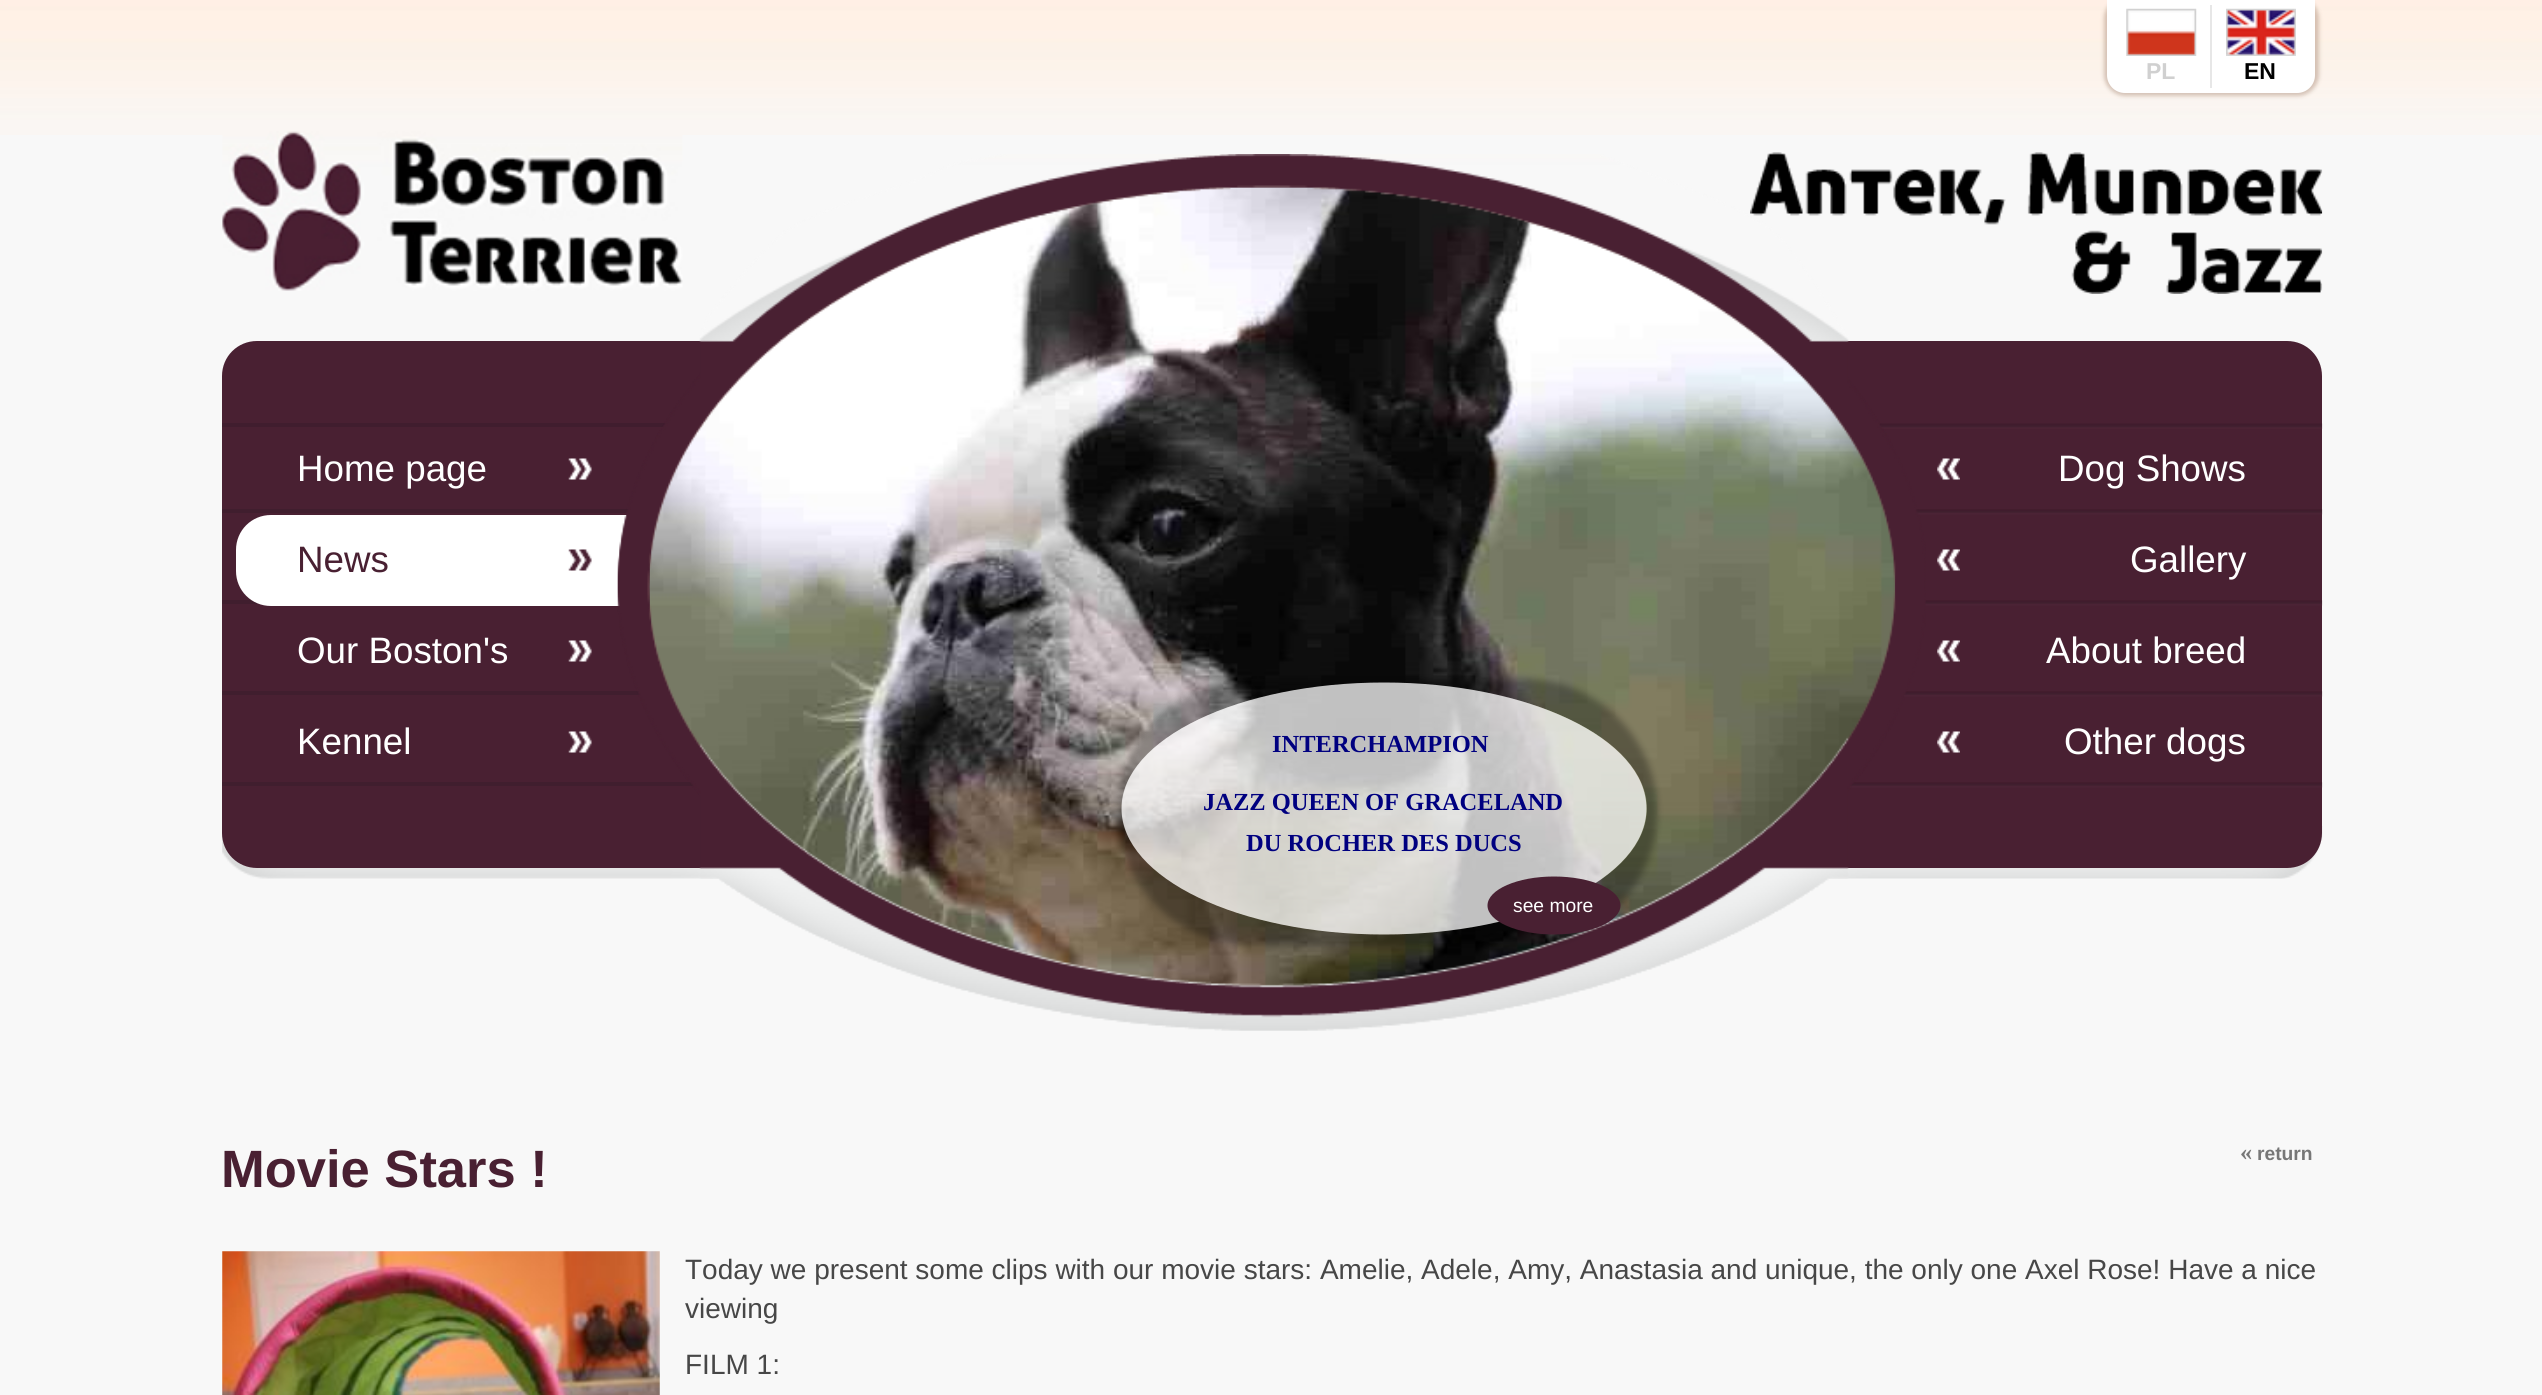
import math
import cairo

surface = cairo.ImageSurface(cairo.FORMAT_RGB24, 2542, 1395)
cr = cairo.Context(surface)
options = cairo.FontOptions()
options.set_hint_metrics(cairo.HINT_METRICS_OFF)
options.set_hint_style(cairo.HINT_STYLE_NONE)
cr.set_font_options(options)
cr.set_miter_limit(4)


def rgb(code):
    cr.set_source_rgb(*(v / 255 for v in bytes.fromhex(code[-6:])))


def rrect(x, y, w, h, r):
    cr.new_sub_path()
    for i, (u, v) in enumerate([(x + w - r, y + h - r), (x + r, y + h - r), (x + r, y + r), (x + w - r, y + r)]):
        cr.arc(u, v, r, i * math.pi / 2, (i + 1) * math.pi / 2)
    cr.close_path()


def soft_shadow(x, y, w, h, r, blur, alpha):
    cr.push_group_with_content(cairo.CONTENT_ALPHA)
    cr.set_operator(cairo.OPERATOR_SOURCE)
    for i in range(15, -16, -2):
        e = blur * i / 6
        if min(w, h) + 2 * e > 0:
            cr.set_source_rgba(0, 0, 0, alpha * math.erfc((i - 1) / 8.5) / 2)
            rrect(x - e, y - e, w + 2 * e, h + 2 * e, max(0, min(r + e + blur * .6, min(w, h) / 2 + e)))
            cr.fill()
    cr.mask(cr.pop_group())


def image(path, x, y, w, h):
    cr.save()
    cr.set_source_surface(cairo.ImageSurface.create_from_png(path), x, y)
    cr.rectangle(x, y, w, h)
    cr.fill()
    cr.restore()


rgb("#f8f8f8")
cr.paint()
image("img/1.png", 0, 0, 2542, 135)
rgb("#8a654e")
soft_shadow(2104, -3, 215, 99, 21, 2, 0.35)
rgb("#ffffff")
cr.new_path()
cr.move_to(2107, 0)
cr.line_to(2315, 0)
cr.line_to(2315, 75)
cr.curve_to(2315, 85, 2307, 93, 2297, 93)
cr.line_to(2125, 93)
cr.curve_to(2115, 93, 2107, 85, 2107, 75)
cr.close_path()
cr.fill()
image("img/2.png", 2126, 8, 71, 48)
rgb("#e7e7e7")
cr.rectangle(2210, 5, 2, 83)
cr.fill()
image("img/3.png", 2226, 8, 70, 48)
image("img/4.png", 222, 131, 461, 160)
image("img/5.png", 1750, 152, 573, 142)
image("img/6.png", 1826, 826, 497, 53)
image("img/7.png", 222, 833, 498, 46)
rgb("#492032")
cr.new_path()
cr.move_to(257, 341)
cr.line_to(756, 341)
cr.line_to(756, 868)
cr.line_to(257, 868)
cr.curve_to(237.5, 868, 222, 852.5, 222, 833)
cr.line_to(222, 376)
cr.curve_to(222, 356.5, 237.5, 341, 257, 341)
cr.close_path()
cr.fill()
rgb("#401d2e")
cr.rectangle(222, 423, 446, 4)
cr.fill()
rgb("#401e2e")
cr.rectangle(222, 509, 407, 4)
cr.fill()
image("img/8.png", 568, 458, 24, 22)
cr.rectangle(222, 600, 38, 4)
cr.fill()
rgb("#ffffff")
cr.new_path()
cr.move_to(271, 515)
cr.line_to(756, 515)
cr.line_to(756, 606)
cr.line_to(271, 606)
cr.curve_to(251.5, 606, 236, 590.5, 236, 571)
cr.line_to(236, 550)
cr.curve_to(236, 530.5, 251.5, 515, 271, 515)
cr.close_path()
cr.fill()
image("img/9.png", 568, 549, 24, 22)
rgb("#401e2e")
cr.rectangle(222, 691, 419, 4)
cr.fill()
image("img/8.png", 568, 640, 24, 22)
cr.rectangle(222, 782, 474, 4)
cr.fill()
image("img/8.png", 568, 731, 24, 22)
rgb("#492032")
cr.new_path()
cr.move_to(1789, 341)
cr.line_to(2287, 341)
cr.curve_to(2306.5, 341, 2322, 356.5, 2322, 376)
cr.line_to(2322, 833)
cr.curve_to(2322, 852.5, 2306.5, 868, 2287, 868)
cr.line_to(1789, 868)
cr.close_path()
cr.fill()
image("img/10.png", 1877, 423, 446, 6)
image("img/11.png", 1915, 509, 408, 6)
image("img/12.png", 1937, 458, 23, 22)
image("img/13.png", 1924, 600, 399, 6)
image("img/12.png", 1937, 549, 23, 22)
image("img/14.png", 1901, 691, 422, 6)
image("img/12.png", 1937, 640, 23, 22)
image("img/15.png", 1847, 782, 476, 6)
image("img/12.png", 1937, 731, 23, 22)
image("img/16.png", 617, 185, 1309, 612)
image("img/18.png", 649, 187, 1247, 799)
image("img/17.png", 617, 154, 1279, 877)
cr.save()
cr.set_fill_rule(cairo.FILL_RULE_EVEN_ODD)
cr.new_path()
cr.move_to(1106, 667)
cr.line_to(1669, 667)
cr.line_to(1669, 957)
cr.line_to(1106, 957)
cr.close_path()
cr.move_to(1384, 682.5)
cr.curve_to(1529, 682.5, 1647, 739, 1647, 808.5)
cr.curve_to(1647, 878, 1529, 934.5, 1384, 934.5)
cr.curve_to(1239.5, 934.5, 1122, 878, 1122, 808.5)
cr.curve_to(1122, 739, 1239.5, 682.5, 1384, 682.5)
cr.close_path()
cr.clip()
rgb("#000000")
soft_shadow(1118, 679, 539, 266, 133, 3.5, 0.3)
cr.restore()
cr.set_source_rgba(1, 1, 1, 0.75)
cr.new_path()
cr.move_to(1384, 682.5)
cr.curve_to(1529, 682.5, 1646.5, 739, 1646.5, 808.5)
cr.curve_to(1646.5, 878, 1529, 934.5, 1384, 934.5)
cr.curve_to(1239, 934.5, 1121.5, 878, 1121.5, 808.5)
cr.curve_to(1121.5, 739, 1239, 682.5, 1384, 682.5)
cr.close_path()
cr.fill()
rgb("#492032")
cr.new_path()
cr.move_to(1554, 876.5)
cr.curve_to(1590.5, 876.5, 1620.5, 889.5, 1620.5, 905.5)
cr.curve_to(1620.5, 921.5, 1590.5, 934.5, 1554, 934.5)
cr.curve_to(1517.5, 934.5, 1487.5, 921.5, 1487.5, 905.5)
cr.curve_to(1487.5, 889.5, 1517.5, 876.5, 1554, 876.5)
cr.close_path()
cr.fill()
image("img/19.png", 222, 1251, 438, 144)
cr.select_font_face("Liberation Sans", cairo.FONT_SLANT_NORMAL, cairo.FONT_WEIGHT_BOLD)
cr.set_font_size(23)
rgb("#d0d0d0")
cr.move_to(2146, 79)
cr.show_text("PL")
rgb("#000000")
cr.move_to(2244, 79)
cr.show_text("EN")
cr.select_font_face("Liberation Sans")
cr.set_font_size(36.75)
rgb("#ffffff")
cr.move_to(297, 481)
cr.show_text("Home page")
rgb("#492032")
cr.move_to(297, 572)
cr.show_text("News")
rgb("#ffffff")
for x, y, s in [
    (297, 663, "Our Boston's"),
    (297, 754, "Kennel"),
    (2058, 481, "Dog Shows"),
    (2130, 572, "Gallery"),
    (2046, 663, "About breed"),
    (2064, 754, "Other dogs"),
]:
    cr.move_to(x, y)
    cr.show_text(s)
cr.select_font_face("Liberation Serif", cairo.FONT_SLANT_NORMAL, cairo.FONT_WEIGHT_BOLD)
cr.set_font_size(24.5)
rgb("#000080")
for x, y, s in [
    (1272, 752, "INTERCHAMPION"),
    (1203, 810, "JAZZ QUEEN OF GRACELAND"),
    (1246, 851, "DU ROCHER DES DUCS"),
]:
    cr.move_to(x, y)
    cr.show_text(s)
cr.select_font_face("Liberation Sans")
cr.set_font_size(19.25)
rgb("#ffffff")
cr.move_to(1513, 912)
cr.show_text("see more")
cr.select_font_face("Liberation Sans", cairo.FONT_SLANT_NORMAL, cairo.FONT_WEIGHT_BOLD)
cr.set_font_size(52.5)
rgb("#492032")
cr.move_to(221, 1187)
cr.show_text("Movie Stars !")
cr.select_font_face("Liberation Serif", cairo.FONT_SLANT_NORMAL, cairo.FONT_WEIGHT_BOLD)
cr.set_font_size(24.5)
rgb("#777777")
cr.move_to(2240, 1160)
cr.show_text("«")
cr.select_font_face("Liberation Sans", cairo.FONT_SLANT_NORMAL, cairo.FONT_WEIGHT_BOLD)
cr.set_font_size(19.25)
cr.move_to(2257, 1160)
cr.show_text("return")
cr.select_font_face("Liberation Sans")
cr.set_font_size(28)
rgb("#474747")
for x, y, s in [
    (685, 1279, "Today we present some clips with our movie stars: Amelie, Adele, Amy, Anastasia and unique, the only one Axel Rose! Have a nice"),
    (685, 1318, "viewing"),
    (685, 1374, "FILM 1:"),
]:
    cr.move_to(x, y)
    cr.show_text(s)
surface.write_to_png("page.png")
